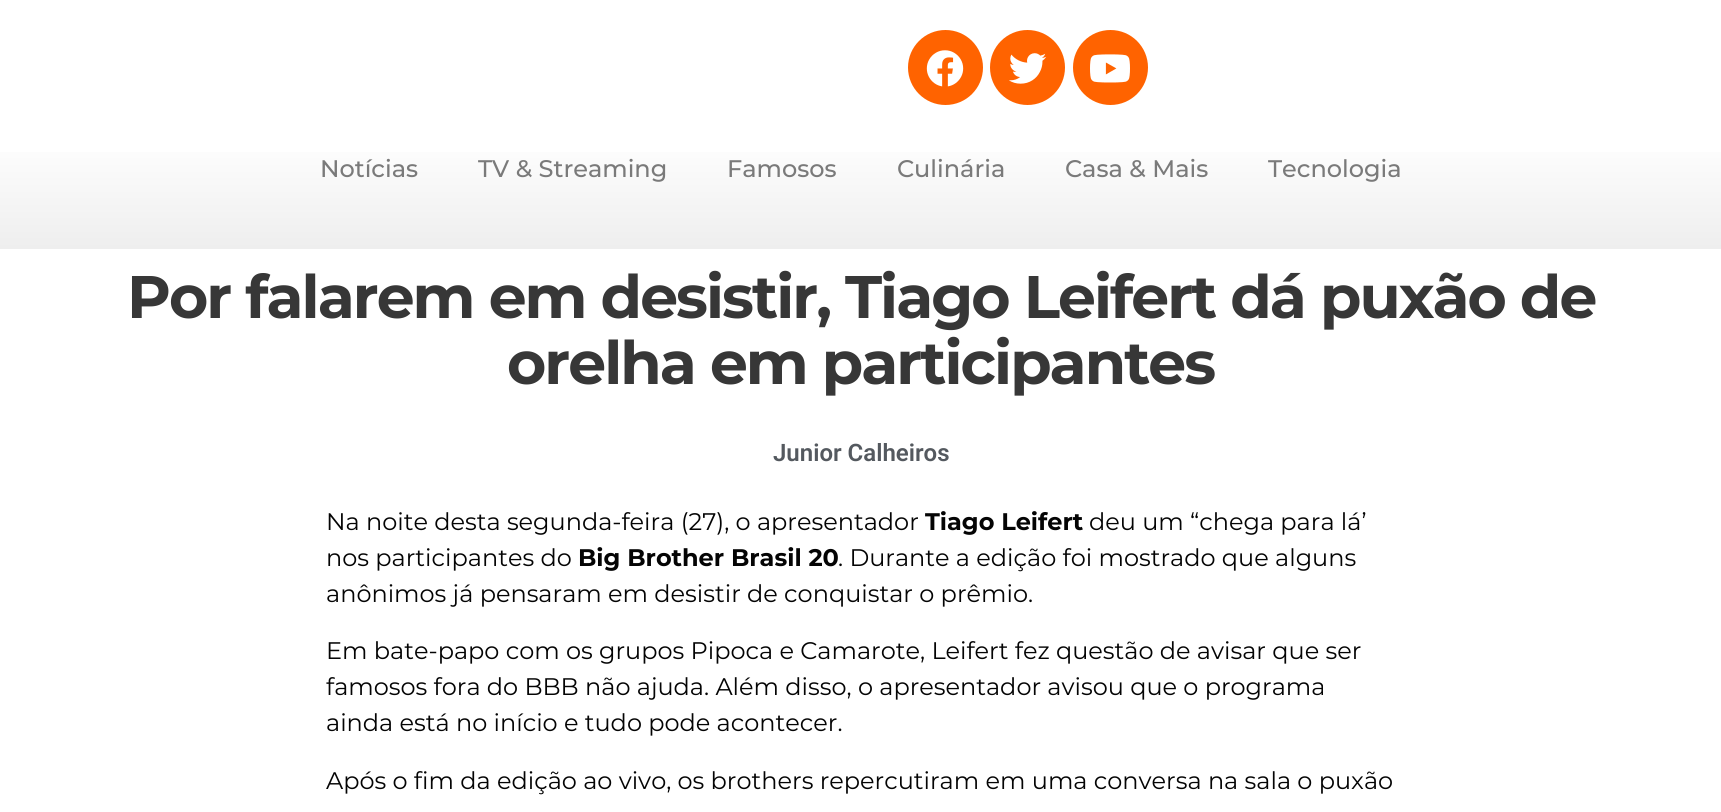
import math
import cairo

surface = cairo.ImageSurface(cairo.FORMAT_RGB24, 1721, 812)
cr = cairo.Context(surface)
options = cairo.FontOptions()
options.set_hint_metrics(cairo.HINT_METRICS_OFF)
options.set_hint_style(cairo.HINT_STYLE_NONE)
cr.set_font_options(options)
cr.set_miter_limit(4)


def rgb(code):
    cr.set_source_rgb(*(v / 255 for v in bytes.fromhex(code[-6:])))


def tracked(x, y, s, letter, word):
    cr.move_to(x, y)
    for ch in s:
        cr.show_text(ch)
        cr.rel_move_to(letter + word * (ch == ' '), 0)


def image(path, x, y, w, h):
    cr.save()
    cr.set_source_surface(cairo.ImageSurface.create_from_png(path), x, y)
    cr.rectangle(x, y, w, h)
    cr.fill()
    cr.restore()


rgb("#ffffff")
cr.paint()
rgb("#ff6300")
cr.arc(945.5, 67.5, 37.5, 0, 2 * math.pi)
cr.fill()
image("img/1.png", 926, 50, 38, 37)
cr.arc(1027.5, 67.5, 37.5, 0, 2 * math.pi)
cr.fill()
image("img/2.png", 1009, 53, 38, 31)
cr.arc(1110.5, 67.5, 37.5, 0, 2 * math.pi)
cr.fill()
image("img/3.png", 1090, 54, 40, 29)
gradient = cairo.LinearGradient(861, 135, 861, 249)
gradient.add_color_stop_rgba(0, 1, 1, 1, 1)
gradient.add_color_stop_rgba(1, 0.933, 0.933, 0.933, 1)
cr.set_source(gradient)
cr.rectangle(0, 152, 1721, 97)
cr.fill()
cr.select_font_face("Montserrat Medium")
cr.set_font_size(24)
rgb("#7a7a7a")
for x, y, s in [
    (320, 177, "Notícias"),
    (478, 177, "TV & Streaming"),
    (727, 177, "Famosos"),
    (897, 177, "Culinária"),
    (1065, 177, "Casa & Mais"),
    (1268, 177, "Tecnologia"),
]:
    cr.move_to(x, y)
    cr.show_text(s)
cr.select_font_face("Montserrat", cairo.FONT_SLANT_NORMAL, cairo.FONT_WEIGHT_BOLD)
cr.set_font_size(60)
rgb("#373737")
tracked(127, 318, "Por falarem em desistir, Tiago Leifert dá puxão de", -1.95, 0)
tracked(507, 384, "orelha em participantes", -1.95, 0)
cr.select_font_face("Roboto SemiBold")
cr.set_font_size(24)
rgb("#54595f")
cr.move_to(773, 461)
cr.show_text("Junior Calheiros")
cr.select_font_face("Montserrat")
rgb("#040404")
cr.move_to(326, 530)
cr.show_text("Na noite desta segunda-feira (27), o apresentador")
cr.select_font_face("Montserrat", cairo.FONT_SLANT_NORMAL, cairo.FONT_WEIGHT_BOLD)
cr.move_to(925, 530)
cr.show_text("Tiago Leifert")
cr.select_font_face("Montserrat")
cr.move_to(1089, 530)
cr.show_text("deu um “chega para lá’")
cr.move_to(326, 566)
cr.show_text("nos participantes do")
cr.select_font_face("Montserrat", cairo.FONT_SLANT_NORMAL, cairo.FONT_WEIGHT_BOLD)
cr.move_to(578, 566)
cr.show_text("Big Brother Brasil 20")
cr.select_font_face("Montserrat")
for x, y, s in [
    (838, 566, ". Durante a edição foi mostrado que alguns"),
    (326, 602, "anônimos já pensaram em desistir de conquistar o prêmio."),
    (326, 659, "Em bate-papo com os grupos Pipoca e Camarote, Leifert fez questão de avisar que ser"),
    (326, 695, "famosos fora do BBB não ajuda. Além disso, o apresentador avisou que o programa"),
    (326, 731, "ainda está no início e tudo pode acontecer."),
    (326, 789, "Após o fim da edição ao vivo, os brothers repercutiram em uma conversa na sala o puxão"),
]:
    cr.move_to(x, y)
    cr.show_text(s)
surface.write_to_png("page.png")
